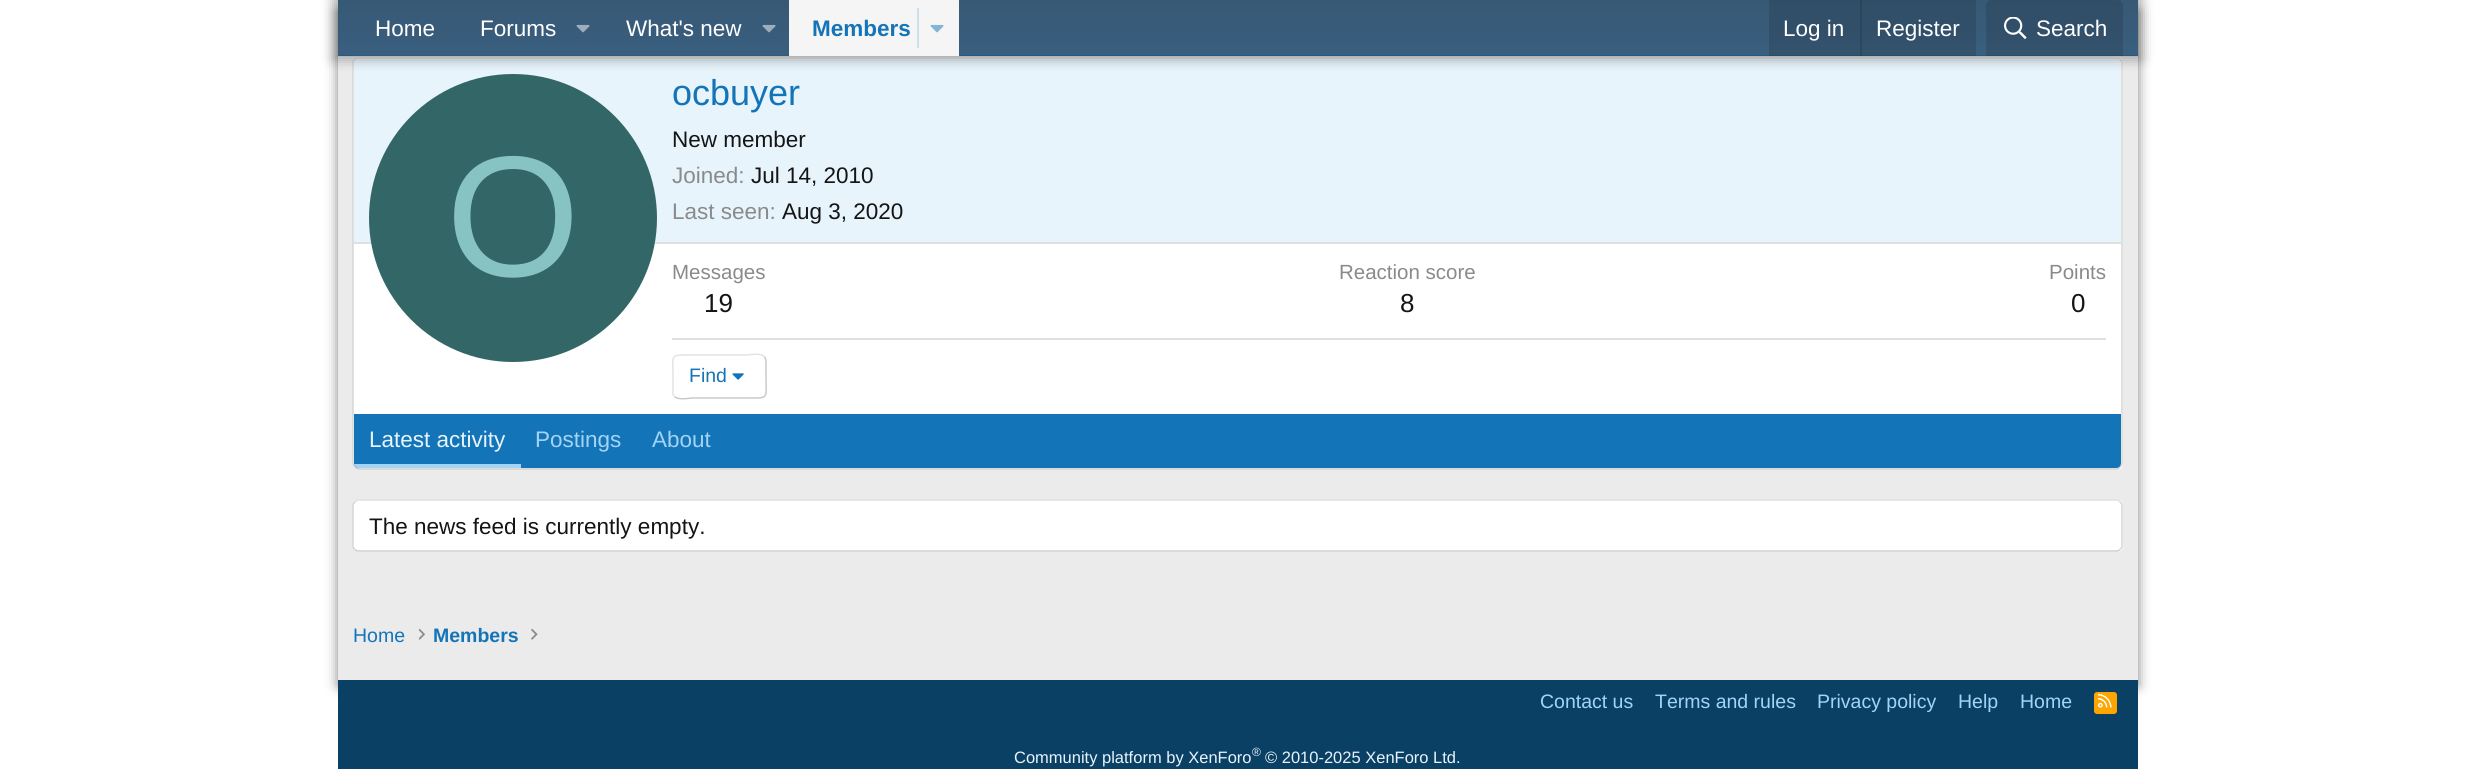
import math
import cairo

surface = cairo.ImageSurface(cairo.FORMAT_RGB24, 2474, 769)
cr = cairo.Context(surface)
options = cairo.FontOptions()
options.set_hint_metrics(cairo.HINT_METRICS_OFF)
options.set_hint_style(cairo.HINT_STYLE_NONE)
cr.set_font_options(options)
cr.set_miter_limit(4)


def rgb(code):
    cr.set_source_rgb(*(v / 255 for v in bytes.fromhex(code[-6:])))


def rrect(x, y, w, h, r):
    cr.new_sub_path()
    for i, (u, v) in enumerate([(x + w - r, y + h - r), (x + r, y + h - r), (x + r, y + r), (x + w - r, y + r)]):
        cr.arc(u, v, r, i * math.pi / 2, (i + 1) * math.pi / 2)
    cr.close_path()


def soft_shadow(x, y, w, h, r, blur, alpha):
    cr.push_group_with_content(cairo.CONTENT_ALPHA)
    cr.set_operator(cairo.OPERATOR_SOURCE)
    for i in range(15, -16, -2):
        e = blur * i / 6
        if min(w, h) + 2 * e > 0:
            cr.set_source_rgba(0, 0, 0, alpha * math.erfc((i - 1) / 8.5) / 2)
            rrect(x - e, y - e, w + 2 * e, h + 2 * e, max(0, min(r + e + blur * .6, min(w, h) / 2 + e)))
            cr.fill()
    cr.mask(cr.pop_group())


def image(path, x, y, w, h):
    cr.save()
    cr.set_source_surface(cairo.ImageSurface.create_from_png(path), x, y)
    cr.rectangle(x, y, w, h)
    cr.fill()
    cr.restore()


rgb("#ffffff")
cr.paint()
rgb("#ebebeb")
cr.rectangle(338, 56, 1800, 624)
cr.fill()
cr.save()
cr.set_fill_rule(cairo.FILL_RULE_EVEN_ODD)
cr.new_path()
cr.move_to(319, 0)
cr.line_to(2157, 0)
cr.line_to(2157, 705)
cr.line_to(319, 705)
cr.close_path()
cr.move_to(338, 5)
cr.line_to(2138, 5)
cr.line_to(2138, 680)
cr.line_to(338, 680)
cr.close_path()
cr.clip()
rgb("#7f7f7f")
soft_shadow(338, 11, 1800, 675, 0, 6, 1)
cr.restore()
rgb("#ffffff")
rrect(353, 57, 1770, 413, 6)
cr.fill()
cr.new_path()
cr.move_to(355, 59.5)
cr.curve_to(356, 58.5, 357, 58, 358.5, 58)
cr.line_to(2116.5, 58)
cr.curve_to(2118, 58, 2119, 58.5, 2120, 59.5)
rgb("#e0e0e0")
cr.set_line_width(1.5)
cr.stroke()
cr.new_path()
cr.move_to(2120, 59.5)
cr.curve_to(2121, 60.5, 2122, 61.5, 2122, 63)
cr.line_to(2122, 463.5)
cr.curve_to(2122, 465, 2121, 466, 2120, 467)
rgb("#d6d6d6")
cr.stroke()
cr.new_path()
cr.move_to(2120, 467)
cr.curve_to(2119, 468, 2118, 469, 2116.5, 469)
cr.line_to(358.5, 469)
cr.curve_to(357, 469, 356, 468, 355, 467)
rgb("#cccccc")
cr.stroke()
cr.new_path()
cr.move_to(355, 467)
cr.curve_to(354, 466, 353, 465, 353, 463.5)
cr.line_to(353, 63)
cr.curve_to(353, 61.5, 354, 60.5, 355, 59.5)
rgb("#d6d6d6")
cr.stroke()
rgb("#e8f4fc")
cr.new_path()
cr.move_to(359, 59)
cr.line_to(2116, 59)
cr.curve_to(2119, 59, 2121, 61, 2121, 64)
cr.line_to(2121, 243)
cr.line_to(354, 243)
cr.line_to(354, 64)
cr.curve_to(354, 61, 356, 59, 359, 59)
cr.close_path()
cr.fill()
rgb("#e0e0e0")
cr.rectangle(354, 242, 1767, 2)
cr.fill()
rgb("#336666")
cr.arc(513, 218, 144, 0, 2 * math.pi)
cr.fill()
rgb("#000000")
soft_shadow(333, -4, 1809, 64, 0, 6, 0.3)
rgb("#0f578a")
cr.rectangle(338, 55, 1800, 1)
cr.fill()
image("img/1.png", 338, 0, 1800, 56)
image("img/2.png", 352, 55, 106, 1)
image("img/3.png", 458, 55, 147, 1)
image("img/4.png", 576, 24, 14, 9)
image("img/5.png", 605, 55, 184, 1)
image("img/4.png", 762, 24, 14, 9)
rgb("#f5f5f5")
cr.rectangle(789, 0, 170, 56)
cr.fill()
rgb("#cedfeb")
cr.rectangle(917, 8, 2, 40)
cr.fill()
image("img/6.png", 930, 24, 14, 9)
cr.set_source_rgba(0.078, 0.078, 0.078, 0.15)
cr.rectangle(1769, 0, 207, 56)
cr.fill()
cr.rectangle(1860, 0, 2, 56)
cr.fill()
cr.new_path()
cr.move_to(1992, 0)
cr.line_to(2117, 0)
cr.curve_to(2120.5, 0, 2123, 2.5, 2123, 6)
cr.line_to(2123, 56)
cr.line_to(1986, 56)
cr.line_to(1986, 6)
cr.curve_to(1986, 2.5, 1988.5, 0, 1992, 0)
cr.close_path()
cr.fill()
image("img/7.png", 2004, 17, 23, 22)
rgb("#e0e0e0")
cr.rectangle(672, 338, 1434, 2)
cr.fill()
cr.new_path()
cr.move_to(764, 356.5)
cr.curve_to(766.5, 358.5, 766, 362.5, 766, 365.5)
cr.line_to(766, 376.5)
cr.curve_to(766, 399.5, 769.5, 398, 747, 398)
cr.line_to(692, 398)
cr.curve_to(691, 398, 678, 400.5, 674.5, 396.5)
rgb("#c9c9c9")
cr.stroke()
cr.new_path()
cr.move_to(674.5, 396.5)
cr.curve_to(672, 394.5, 673, 390.5, 673, 387.5)
cr.line_to(673, 376.5)
cr.curve_to(673, 353.5, 669, 355, 692, 355)
cr.line_to(747, 355)
cr.curve_to(747.5, 355, 760.5, 352.5, 764, 356.5)
rgb("#e3e3e3")
cr.stroke()
image("img/8.png", 732, 373, 12, 7)
rgb("#1474b8")
cr.new_path()
cr.move_to(354, 414)
cr.line_to(2121, 414)
cr.line_to(2121, 463)
cr.curve_to(2121, 466, 2119, 468, 2116, 468)
cr.line_to(359, 468)
cr.curve_to(356, 468, 354, 466, 354, 463)
cr.close_path()
cr.fill()
cr.save()
cr.new_path()
cr.move_to(354, 414)
cr.line_to(2121, 414)
cr.line_to(2121, 463)
cr.curve_to(2121, 466, 2119, 468, 2116, 468)
cr.line_to(359, 468)
cr.curve_to(356, 468, 354, 466, 354, 463)
cr.close_path()
cr.clip()
rgb("#a3d4f5")
cr.rectangle(354, 464, 167, 4)
cr.fill()
cr.restore()
rgb("#ffffff")
rrect(353, 500, 1770, 52, 6)
cr.fill()
cr.new_path()
cr.move_to(355, 502)
cr.curve_to(356, 501, 357, 500, 358.5, 500)
cr.line_to(2116.5, 500)
cr.curve_to(2118, 500, 2119, 501, 2120, 502)
rgb("#e0e0e0")
cr.stroke()
cr.new_path()
cr.move_to(2120, 502)
cr.curve_to(2121, 503, 2122, 504, 2122, 505.5)
cr.line_to(2122, 546)
cr.curve_to(2122, 547.5, 2121, 548.5, 2120, 549.5)
rgb("#d6d6d6")
cr.stroke()
cr.new_path()
cr.move_to(2120, 549.5)
cr.curve_to(2119, 550.5, 2118, 551, 2116.5, 551)
cr.line_to(358.5, 551)
cr.curve_to(357, 551, 356, 550.5, 355, 549.5)
rgb("#cccccc")
cr.stroke()
cr.new_path()
cr.move_to(355, 549.5)
cr.curve_to(354, 548.5, 353, 547.5, 353, 546)
cr.line_to(353, 505.5)
cr.curve_to(353, 504, 354, 503, 355, 502)
rgb("#d6d6d6")
cr.stroke()
image("img/9.png", 419, 628, 6, 12)
image("img/10.png", 531, 628, 7, 12)
rgb("#0b4065")
cr.rectangle(338, 680, 1800, 89)
cr.fill()
rgb("#ffa500")
rrect(2094, 692, 23, 22, 3)
cr.fill()
image("img/11.png", 2098, 694, 14, 14)
cr.select_font_face("Liberation Sans")
cr.set_font_size(22.5)
rgb("#ffffff")
for x, y, s in [
    (375, 36, "Home"),
    (480, 36, "Forums"),
    (626, 36, "What's new"),
]:
    cr.move_to(x, y)
    cr.show_text(s)
cr.select_font_face("Liberation Sans", cairo.FONT_SLANT_NORMAL, cairo.FONT_WEIGHT_BOLD)
rgb("#1474b8")
cr.move_to(812, 36)
cr.show_text("Members")
cr.select_font_face("Liberation Sans")
rgb("#ffffff")
for x, y, s in [
    (1783, 36, "Log in"),
    (1876, 36, "Register"),
    (2036, 36, "Search"),
]:
    cr.move_to(x, y)
    cr.show_text(s)
cr.set_font_size(172)
rgb("#88c3c3")
cr.move_to(446, 276)
cr.show_text("O")
cr.set_font_size(36)
rgb("#1474b8")
cr.move_to(672, 105)
cr.show_text("ocbuyer")
cr.set_font_size(22.5)
rgb("#141414")
cr.move_to(672, 147)
cr.show_text("New member")
rgb("#8a8a8a")
cr.move_to(672, 183)
cr.show_text("Joined:")
rgb("#141414")
cr.move_to(751, 183)
cr.show_text("Jul 14, 2010")
rgb("#8a8a8a")
cr.move_to(672, 219)
cr.show_text("Last seen:")
rgb("#141414")
cr.move_to(782, 219)
cr.show_text("Aug 3, 2020")
cr.set_font_size(20.5)
rgb("#8a8a8a")
cr.move_to(672, 279)
cr.show_text("Messages")
cr.set_font_size(26)
rgb("#141414")
cr.move_to(704, 312)
cr.show_text("19")
cr.set_font_size(20.5)
rgb("#8a8a8a")
cr.move_to(1339, 279)
cr.show_text("Reaction score")
cr.set_font_size(26)
rgb("#141414")
cr.move_to(1400, 312)
cr.show_text("8")
cr.set_font_size(20.5)
rgb("#8a8a8a")
cr.move_to(2049, 279)
cr.show_text("Points")
cr.set_font_size(26)
rgb("#141414")
cr.move_to(2071, 312)
cr.show_text("0")
cr.set_font_size(19.5)
rgb("#1474b8")
cr.move_to(689, 382)
cr.show_text("Find")
cr.set_font_size(22.5)
rgb("#e8f4fc")
cr.move_to(369, 447)
cr.show_text("Latest activity")
rgb("#a3d4f5")
cr.move_to(535, 447)
cr.show_text("Postings")
cr.move_to(652, 447)
cr.show_text("About")
rgb("#141414")
cr.move_to(369, 534)
cr.show_text("The news feed is currently empty.")
cr.set_font_size(19.5)
rgb("#1474b8")
cr.move_to(353, 642)
cr.show_text("Home")
cr.select_font_face("Liberation Sans", cairo.FONT_SLANT_NORMAL, cairo.FONT_WEIGHT_BOLD)
cr.move_to(433, 642)
cr.show_text("Members")
cr.select_font_face("Liberation Sans")
rgb("#a3d4f5")
for x, y, s in [
    (1540, 708, "Contact us"),
    (1655, 708, "Terms and rules"),
    (1817, 708, "Privacy policy"),
    (1958, 708, "Help"),
    (2020, 708, "Home"),
]:
    cr.move_to(x, y)
    cr.show_text(s)
cr.set_font_size(16.5)
rgb("#e8f4fc")
cr.move_to(1014, 763)
cr.show_text("Community platform by XenForo")
cr.set_font_size(12)
cr.move_to(1252, 756)
cr.show_text("®")
cr.set_font_size(16.5)
cr.move_to(1265, 763)
cr.show_text("© 2010-2025 XenForo Ltd.")
surface.write_to_png("page.png")
